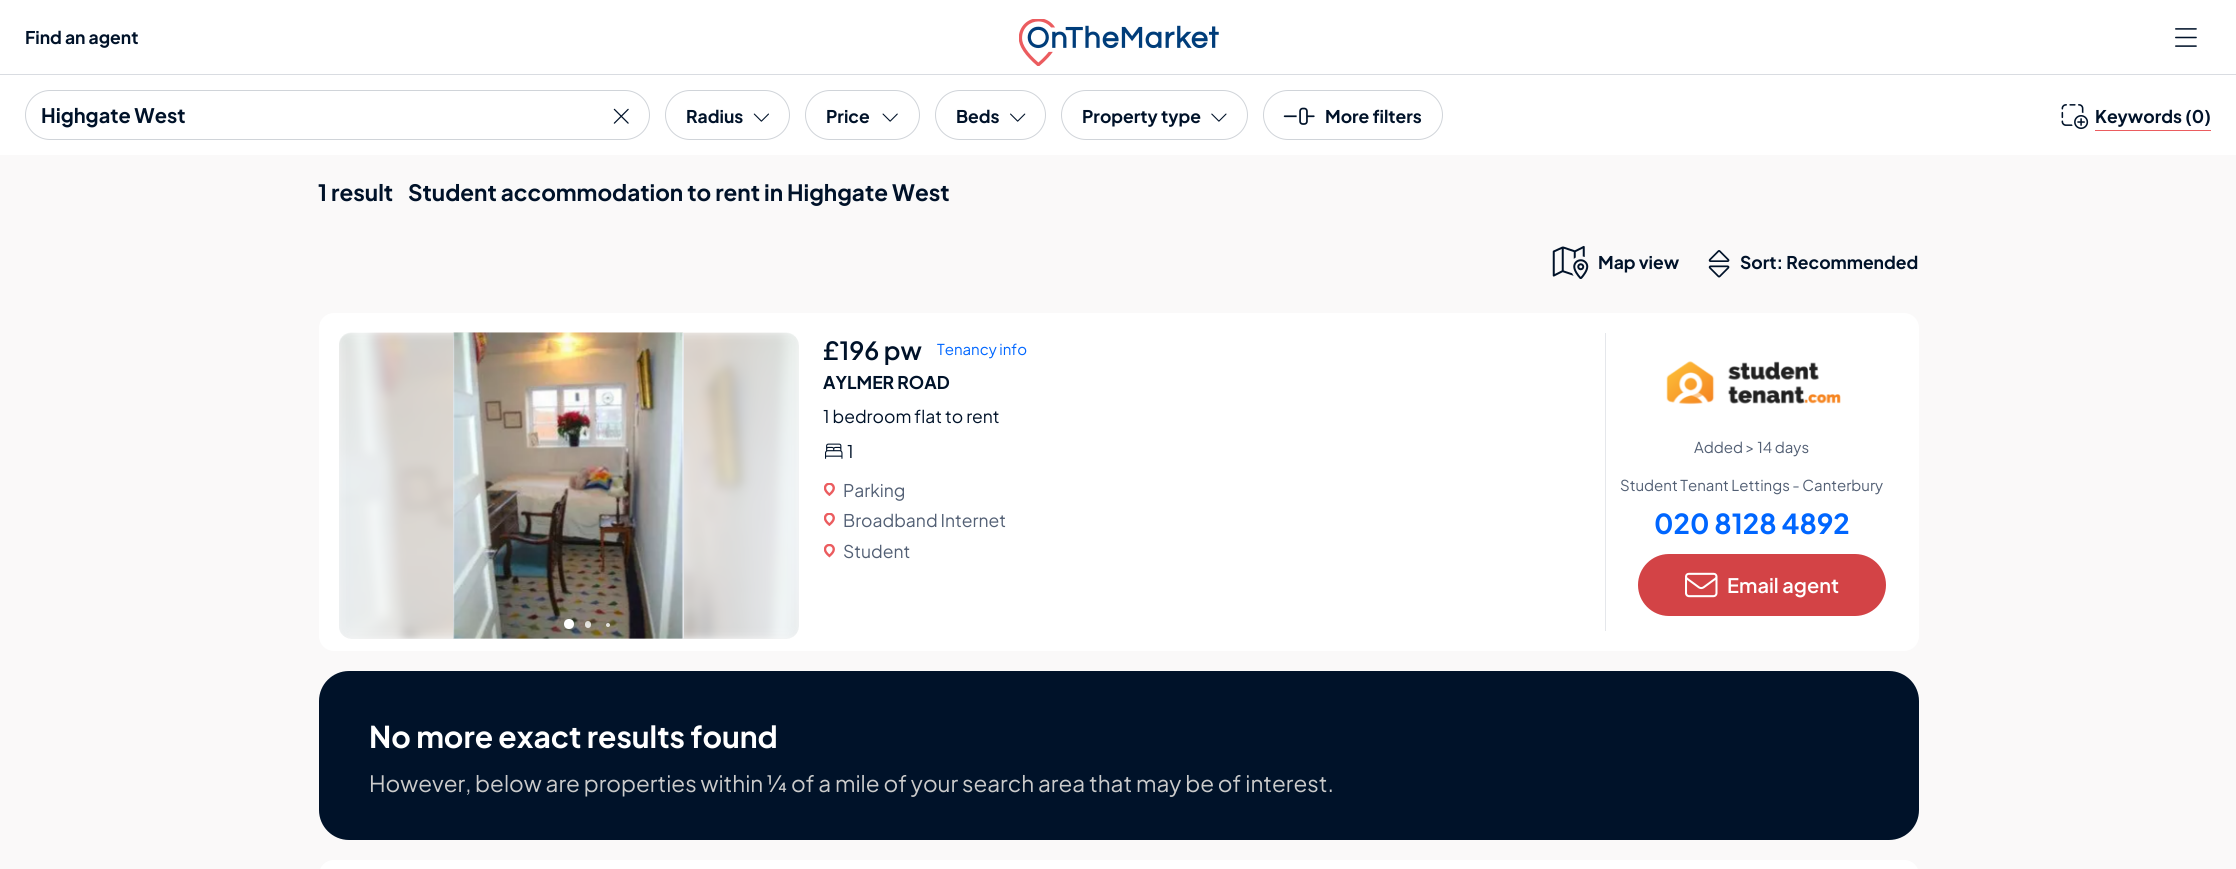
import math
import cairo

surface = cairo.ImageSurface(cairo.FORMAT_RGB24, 2236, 869)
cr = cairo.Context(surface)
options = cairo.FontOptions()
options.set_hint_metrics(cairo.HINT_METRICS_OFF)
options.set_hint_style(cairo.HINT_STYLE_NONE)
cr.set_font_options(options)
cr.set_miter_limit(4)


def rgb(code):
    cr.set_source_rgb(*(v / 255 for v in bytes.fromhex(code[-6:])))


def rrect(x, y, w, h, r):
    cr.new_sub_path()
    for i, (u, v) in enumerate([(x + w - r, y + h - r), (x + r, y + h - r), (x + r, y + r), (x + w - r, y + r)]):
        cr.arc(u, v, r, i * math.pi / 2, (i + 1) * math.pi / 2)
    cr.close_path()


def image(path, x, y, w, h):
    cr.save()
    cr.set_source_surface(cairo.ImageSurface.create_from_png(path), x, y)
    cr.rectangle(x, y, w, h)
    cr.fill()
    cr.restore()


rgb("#ffffff")
cr.paint()
rgb("#d9dce1")
cr.rectangle(0, 74, 2236, 1)
cr.fill()
image("img/1.png", 1019, 19, 200, 47)
image("img/2.png", 2175, 28, 22, 19)
rrect(25.5, 90.5, 624, 49, 24.5)
rgb("#d0d4d9")
cr.set_line_width(1)
cr.stroke()
image("img/3.png", 613, 108, 16, 16)
rrect(665.5, 90.5, 124, 49, 24.5)
cr.stroke()
image("img/4.png", 753, 113, 16, 9)
rrect(805.5, 90.5, 114, 49, 24.5)
cr.stroke()
image("img/5.png", 882, 113, 16, 9)
rrect(935.5, 90.5, 110, 49, 24.5)
cr.stroke()
image("img/6.png", 1010, 113, 16, 9)
rrect(1061.5, 90.5, 186, 49, 24.5)
cr.stroke()
image("img/7.png", 1211, 113, 16, 9)
rrect(1263.5, 90.5, 179, 49, 24.5)
cr.stroke()
image("img/8.png", 1283, 107, 32, 18)
image("img/9.png", 2061, 104, 28, 26)
rgb("#eb5c5f")
cr.rectangle(2095, 130, 116, 1)
cr.fill()
rgb("#faf9f9")
cr.rectangle(0, 155, 2236, 714)
cr.fill()
image("img/10.png", 1552, 245, 37, 34)
image("img/11.png", 1708, 250, 22, 28)
rgb("#ffffff")
rrect(319, 313, 1600, 338, 15)
cr.fill()
rgb("#f5f5f5")
rrect(339, 333, 460, 306, 13)
cr.fill()
image("img/12.png", 339, 332, 460, 307)
for x, y, w, h, color in [
    (454, 333, 229, 306, "#ffffff"),
    (683, 333, 1, 306, "#e5e7eb"),
    (453, 333, 1, 306, "#e5e7eb"),
]:
    rgb(color)
    cr.rectangle(x, y, w, h)
    cr.fill()
image("img/13.png", 453, 332, 230, 307)
rgb("#ffffff")
cr.arc(569, 624, 5, 0, 2 * math.pi)
cr.fill()
cr.set_source_rgba(1, 1, 1, 0.8)
rrect(585, 621, 6, 7, 3)
cr.fill()
cr.arc(608, 625, 2, 0, 2 * math.pi)
cr.fill()
image("img/14.png", 825, 443, 18, 16)
image("img/15.png", 824, 483, 11, 13)
image("img/15.png", 824, 513, 11, 13)
image("img/16.png", 824, 544, 11, 14)
rgb("#e5e7eb")
cr.rectangle(1605, 333, 1, 298)
cr.fill()
image("img/17.png", 1666, 361, 175, 44)
rgb("#d34346")
rrect(1639.5, 555.5, 245, 59, 29.5)
cr.fill_preserve()
cr.set_line_width(3)
cr.stroke()
image("img/18.png", 1685, 572, 33, 26)
rgb("#001229")
rrect(319, 671, 1600, 169, 30)
cr.fill()
rgb("#ffffff")
cr.new_path()
cr.move_to(334, 860)
cr.line_to(1904, 860)
cr.curve_to(1912.5, 860, 1919, 866.5, 1919, 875)
cr.line_to(1919, 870)
cr.line_to(319, 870)
cr.line_to(319, 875)
cr.curve_to(319, 866.5, 325.5, 860, 334, 860)
cr.close_path()
cr.fill()
cr.select_font_face("Plus Jakarta Sans", cairo.FONT_SLANT_NORMAL, cairo.FONT_WEIGHT_BOLD)
cr.set_font_size(17.5)
rgb("#001229")
cr.move_to(25, 44)
cr.show_text("Find an agent")
cr.set_font_size(20)
cr.move_to(41, 123)
cr.show_text("Highgate West")
cr.set_font_size(17.5)
for x, y, s in [
    (686, 123, "Radius"),
    (826, 123, "Price"),
    (956, 123, "Beds"),
    (1082, 123, "Property type"),
    (1325, 123, "More filters"),
    (2095, 123, "Keywords (0)"),
]:
    cr.move_to(x, y)
    cr.show_text(s)
cr.set_font_size(22.5)
cr.move_to(318, 201)
cr.show_text("1 result")
cr.move_to(408, 201)
cr.show_text("Student accommodation to rent in Highgate West")
cr.set_font_size(17.5)
cr.move_to(1598, 269)
cr.show_text("Map view")
cr.move_to(1740, 269)
cr.show_text("Sort: Recommended")
cr.select_font_face("Plus Jakarta Sans SemiBold")
cr.set_font_size(25)
cr.move_to(823, 360)
cr.show_text("£196 pw")
cr.select_font_face("Plus Jakarta Sans")
cr.set_font_size(15)
rgb("#0066ff")
cr.move_to(937, 355)
cr.show_text("Tenancy info")
cr.select_font_face("Plus Jakarta Sans", cairo.FONT_SLANT_NORMAL, cairo.FONT_WEIGHT_BOLD)
cr.set_font_size(17.5)
rgb("#001229")
cr.move_to(823, 389)
cr.show_text("AYLMER ROAD")
cr.select_font_face("Plus Jakarta Sans")
cr.move_to(823, 423)
cr.show_text("1 bedroom flat to rent")
cr.move_to(847, 458)
cr.show_text("1")
rgb("#525f74")
for x, y, s in [
    (843, 497, "Parking"),
    (843, 527, "Broadband Internet"),
    (843, 558, "Student"),
]:
    cr.move_to(x, y)
    cr.show_text(s)
cr.set_font_size(15)
cr.move_to(1694, 453)
cr.show_text("Added > 14 days")
cr.move_to(1620, 491)
cr.show_text("Student Tenant Lettings - Canterbury")
cr.select_font_face("Plus Jakarta Sans", cairo.FONT_SLANT_NORMAL, cairo.FONT_WEIGHT_BOLD)
cr.set_font_size(27.5)
rgb("#0066ff")
cr.move_to(1654, 534)
cr.show_text("020 8128 4892")
cr.select_font_face("Plus Jakarta Sans SemiBold")
cr.set_font_size(20)
rgb("#ffffff")
cr.move_to(1727, 593)
cr.show_text("Email agent")
cr.select_font_face("Plus Jakarta Sans", cairo.FONT_SLANT_NORMAL, cairo.FONT_WEIGHT_BOLD)
cr.set_font_size(30)
cr.move_to(369, 748)
cr.show_text("No more exact results found")
cr.select_font_face("Plus Jakarta Sans")
cr.set_font_size(22.5)
rgb("#cbcbcb")
cr.move_to(369, 792)
cr.show_text("However, below are properties within ¼ of a mile of your search area that may be of interest.")
surface.write_to_png("page.png")
